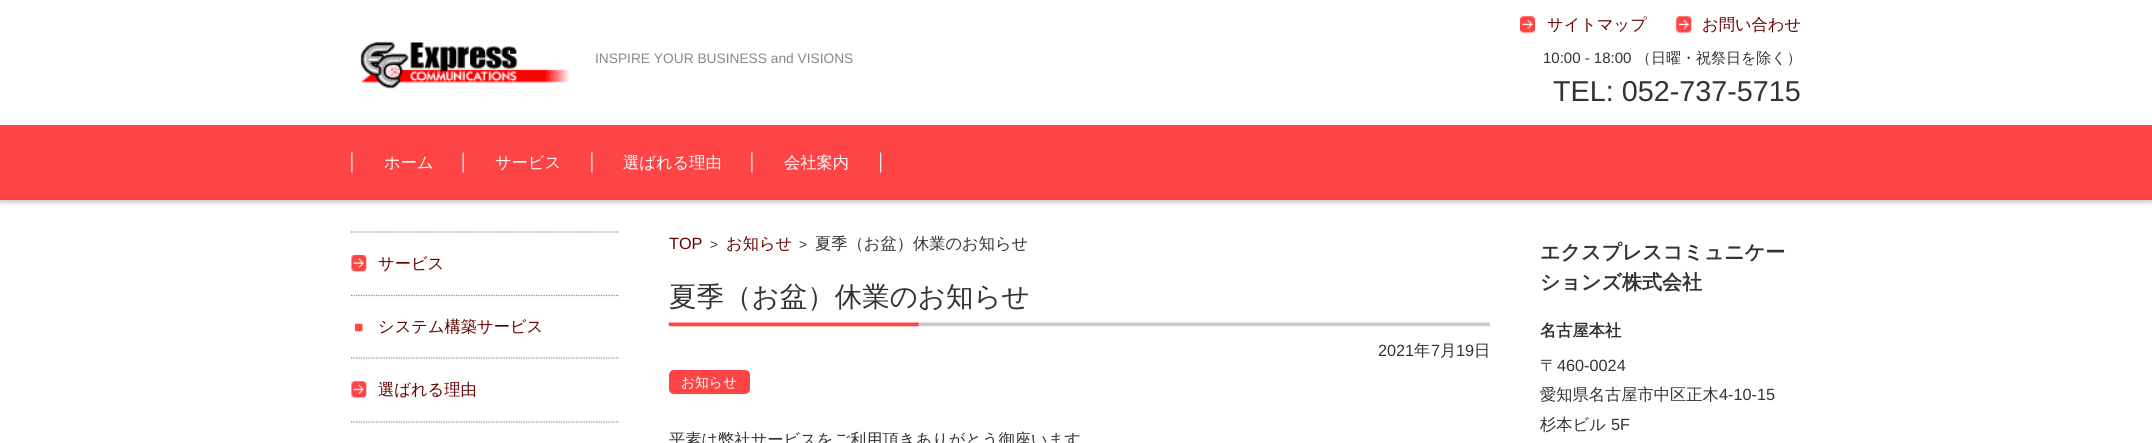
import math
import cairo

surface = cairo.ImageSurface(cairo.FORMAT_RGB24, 2152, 443)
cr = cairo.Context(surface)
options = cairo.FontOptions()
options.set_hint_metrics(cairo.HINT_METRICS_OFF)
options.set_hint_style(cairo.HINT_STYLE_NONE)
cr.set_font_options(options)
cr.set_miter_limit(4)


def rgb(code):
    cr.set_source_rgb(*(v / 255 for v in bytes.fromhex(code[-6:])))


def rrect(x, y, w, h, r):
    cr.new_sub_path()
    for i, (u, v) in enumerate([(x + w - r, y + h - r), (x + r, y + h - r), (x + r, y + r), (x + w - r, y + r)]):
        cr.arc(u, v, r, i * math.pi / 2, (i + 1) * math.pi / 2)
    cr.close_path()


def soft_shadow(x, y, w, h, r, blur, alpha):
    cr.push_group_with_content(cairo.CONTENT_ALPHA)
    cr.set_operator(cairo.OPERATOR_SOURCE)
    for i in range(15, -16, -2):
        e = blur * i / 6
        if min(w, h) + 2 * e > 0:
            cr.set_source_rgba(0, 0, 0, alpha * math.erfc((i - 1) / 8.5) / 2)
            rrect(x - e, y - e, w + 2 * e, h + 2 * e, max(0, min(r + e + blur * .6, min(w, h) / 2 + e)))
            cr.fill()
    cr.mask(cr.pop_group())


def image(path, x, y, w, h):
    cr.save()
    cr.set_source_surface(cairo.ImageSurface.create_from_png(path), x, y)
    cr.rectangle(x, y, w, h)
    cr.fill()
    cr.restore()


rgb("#ffffff")
cr.paint()
image("img/1.png", 360, 41, 210, 48)
image("img/2.png", 1520, 16, 15, 17)
image("img/3.png", 1676, 16, 16, 17)
rgb("#000000")
soft_shadow(0, 128, 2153, 75, 0, 2, 0.2)
rgb("#fe4444")
cr.rectangle(0, 125, 2152, 75)
cr.fill()
image("img/4.png", 351, 152, 2, 21)
image("img/5.png", 462, 152, 2, 21)
image("img/4.png", 591, 152, 2, 21)
image("img/6.png", 751, 152, 131, 21)
cr.new_path()
cr.move_to(351, 232)
cr.line_to(619, 232)
rgb("#888888")
cr.set_line_width(1.2)
cr.set_dash([1.25, 1.25])
cr.stroke()
image("img/7.png", 351, 255, 16, 17)
cr.new_path()
cr.move_to(351, 358)
cr.line_to(619, 358)
cr.stroke()
cr.new_path()
cr.move_to(351, 295.5)
cr.line_to(619, 295.5)
cr.stroke()
image("img/8.png", 355, 323, 8, 9)
image("img/9.png", 351, 381, 16, 17)
cr.new_path()
cr.move_to(351, 422)
cr.line_to(619, 422)
cr.stroke()
image("img/10.png", 668, 322, 822, 5)
rgb("#fe4444")
rrect(669, 370, 81, 24, 5)
cr.fill()
cr.select_font_face("Liberation Sans")
cr.set_font_size(13.75)
rgb("#888888")
cr.move_to(595, 63)
cr.show_text("INSPIRE YOUR BUSINESS and VISIONS")
cr.select_font_face("WenQuanYi Zen Hei Medium")
cr.set_font_size(16.25)
rgb("#640000")
cr.move_to(1547, 30)
cr.show_text("サイトマップ")
cr.move_to(1702, 30)
cr.show_text("お問い合わせ")
cr.select_font_face("Liberation Sans")
cr.set_font_size(15)
rgb("#333333")
cr.move_to(1543, 63)
cr.show_text("10:00 - 18:00")
cr.select_font_face("WenQuanYi Zen Hei Medium")
cr.move_to(1636, 63)
cr.show_text("（日曜・祝祭日を除く）")
cr.select_font_face("Liberation Sans")
cr.set_font_size(28.75)
cr.move_to(1553, 101)
cr.show_text("TEL: 052-737-5715")
cr.select_font_face("WenQuanYi Zen Hei Medium")
cr.set_font_size(16.25)
rgb("#ffffff")
for x, y, s in [
    (384, 168, "ホーム"),
    (495, 168, "サービス"),
    (623, 168, "選ばれる理由"),
    (784, 168, "会社案内"),
]:
    cr.move_to(x, y)
    cr.show_text(s)
rgb("#640000")
for x, y, s in [
    (378, 269, "サービス"),
    (378, 332, "システム構築サービス"),
    (378, 395, "選ばれる理由"),
]:
    cr.move_to(x, y)
    cr.show_text(s)
cr.select_font_face("Liberation Sans")
cr.move_to(669, 249)
cr.show_text("TOP")
cr.set_font_size(13.75)
rgb("#333333")
cr.move_to(710, 249)
cr.show_text(">")
cr.select_font_face("WenQuanYi Zen Hei Medium")
cr.set_font_size(16.25)
rgb("#640000")
cr.move_to(726, 249)
cr.show_text("お知らせ")
cr.select_font_face("Liberation Sans")
cr.set_font_size(13.75)
rgb("#333333")
cr.move_to(799, 249)
cr.show_text(">")
cr.select_font_face("WenQuanYi Zen Hei Medium")
cr.set_font_size(16.25)
cr.move_to(815, 249)
cr.show_text("夏季（お盆）休業のお知らせ")
cr.set_font_size(27.5)
cr.move_to(669, 306)
cr.show_text("夏季（お盆）休業のお知らせ")
cr.select_font_face("Liberation Sans")
cr.set_font_size(16.25)
cr.move_to(1378, 356)
cr.show_text("2021")
cr.select_font_face("WenQuanYi Zen Hei Medium")
cr.move_to(1414, 356)
cr.show_text("年")
cr.select_font_face("Liberation Sans")
cr.move_to(1431, 356)
cr.show_text("7")
cr.select_font_face("WenQuanYi Zen Hei Medium")
cr.move_to(1440, 356)
cr.show_text("月")
cr.select_font_face("Liberation Sans")
cr.move_to(1456, 356)
cr.show_text("19")
cr.select_font_face("WenQuanYi Zen Hei Medium")
cr.move_to(1474, 356)
cr.show_text("日")
cr.set_font_size(13.75)
rgb("#ffffff")
cr.move_to(681, 387)
cr.show_text("お知らせ")
cr.set_font_size(16.25)
rgb("#333333")
cr.move_to(669, 445)
cr.show_text("平素は弊社サービスをご利用頂きありがとう御座います")
cr.select_font_face("WenQuanYi Zen Hei", cairo.FONT_SLANT_NORMAL, cairo.FONT_WEIGHT_BOLD)
cr.set_font_size(20)
cr.move_to(1540, 259)
cr.show_text("エクスプレスコミュニケー")
cr.move_to(1540, 289)
cr.show_text("ションズ株式会社")
cr.set_font_size(16.25)
cr.move_to(1540, 336)
cr.show_text("名古屋本社")
cr.select_font_face("WenQuanYi Zen Hei Medium")
cr.move_to(1540, 371)
cr.show_text("〒")
cr.select_font_face("Liberation Sans")
cr.move_to(1557, 371)
cr.show_text("460-0024")
cr.select_font_face("WenQuanYi Zen Hei Medium")
cr.move_to(1540, 400)
cr.show_text("愛知県名古屋市中区正木")
cr.select_font_face("Liberation Sans")
cr.move_to(1719, 400)
cr.show_text("4-10-15")
cr.select_font_face("WenQuanYi Zen Hei Medium")
cr.move_to(1540, 430)
cr.show_text("杉本ビル")
cr.select_font_face("Liberation Sans")
cr.move_to(1611, 430)
cr.show_text("5F")
surface.write_to_png("page.png")
